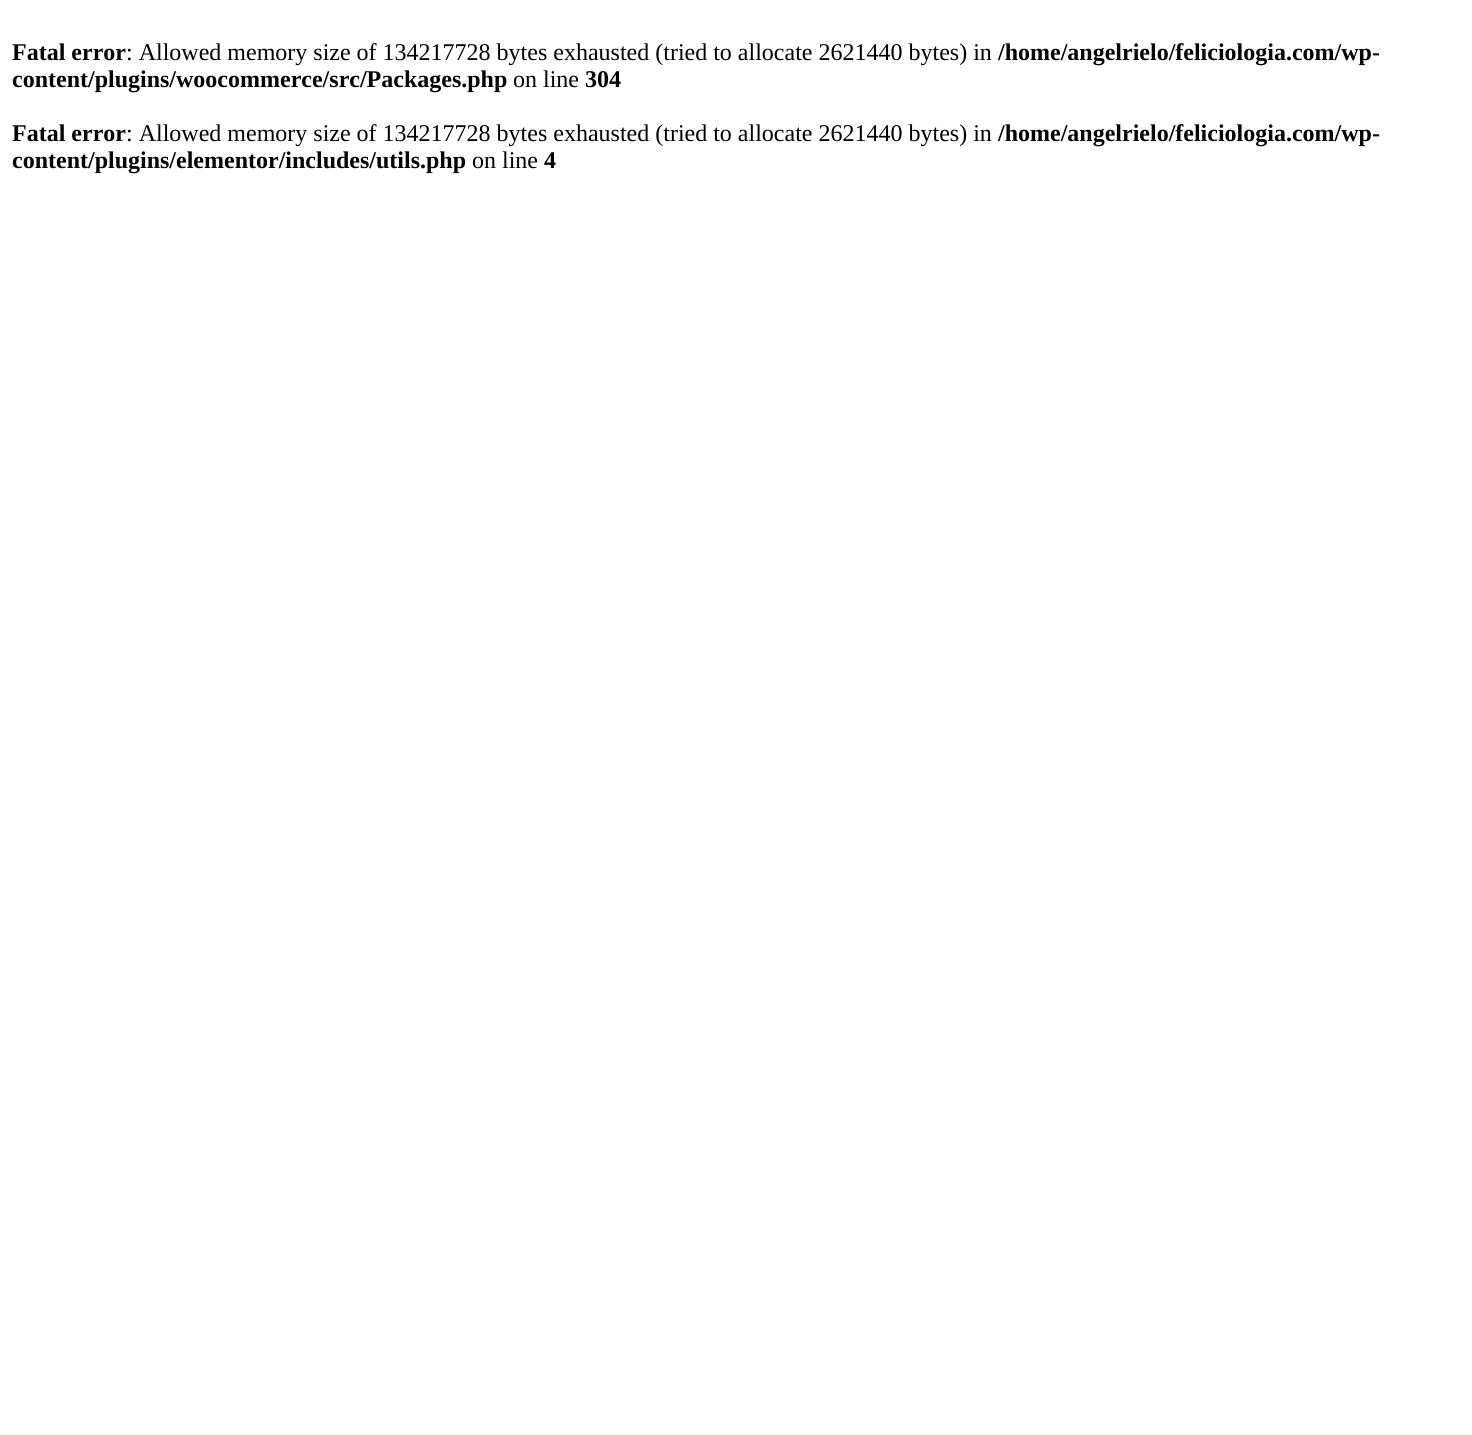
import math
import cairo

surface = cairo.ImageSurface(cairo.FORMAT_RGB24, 1472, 1435)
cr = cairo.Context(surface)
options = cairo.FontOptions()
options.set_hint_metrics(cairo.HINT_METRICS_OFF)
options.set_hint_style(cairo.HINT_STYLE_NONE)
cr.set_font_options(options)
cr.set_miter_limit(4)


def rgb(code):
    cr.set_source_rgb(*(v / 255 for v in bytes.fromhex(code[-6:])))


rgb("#ffffff")
cr.paint()
cr.select_font_face("Liberation Serif", cairo.FONT_SLANT_NORMAL, cairo.FONT_WEIGHT_BOLD)
cr.set_font_size(24)
rgb("#000000")
cr.move_to(12, 60)
cr.show_text("Fatal error")
cr.select_font_face("Liberation Serif")
cr.move_to(126, 60)
cr.show_text(": Allowed memory size of 134217728 bytes exhausted (tried to allocate 2621440 bytes) in")
cr.select_font_face("Liberation Serif", cairo.FONT_SLANT_NORMAL, cairo.FONT_WEIGHT_BOLD)
cr.move_to(998, 60)
cr.show_text("/home/angelrielo/feliciologia.com/wp-")
cr.move_to(12, 87)
cr.show_text("content/plugins/woocommerce/src/Packages.php")
cr.select_font_face("Liberation Serif")
cr.move_to(513, 87)
cr.show_text("on line")
cr.select_font_face("Liberation Serif", cairo.FONT_SLANT_NORMAL, cairo.FONT_WEIGHT_BOLD)
cr.move_to(585, 87)
cr.show_text("304")
cr.move_to(12, 141)
cr.show_text("Fatal error")
cr.select_font_face("Liberation Serif")
cr.move_to(126, 141)
cr.show_text(": Allowed memory size of 134217728 bytes exhausted (tried to allocate 2621440 bytes) in")
cr.select_font_face("Liberation Serif", cairo.FONT_SLANT_NORMAL, cairo.FONT_WEIGHT_BOLD)
cr.move_to(998, 141)
cr.show_text("/home/angelrielo/feliciologia.com/wp-")
cr.move_to(12, 168)
cr.show_text("content/plugins/elementor/includes/utils.php")
cr.select_font_face("Liberation Serif")
cr.move_to(472, 168)
cr.show_text("on line")
cr.select_font_face("Liberation Serif", cairo.FONT_SLANT_NORMAL, cairo.FONT_WEIGHT_BOLD)
cr.move_to(544, 168)
cr.show_text("4")
surface.write_to_png("page.png")
